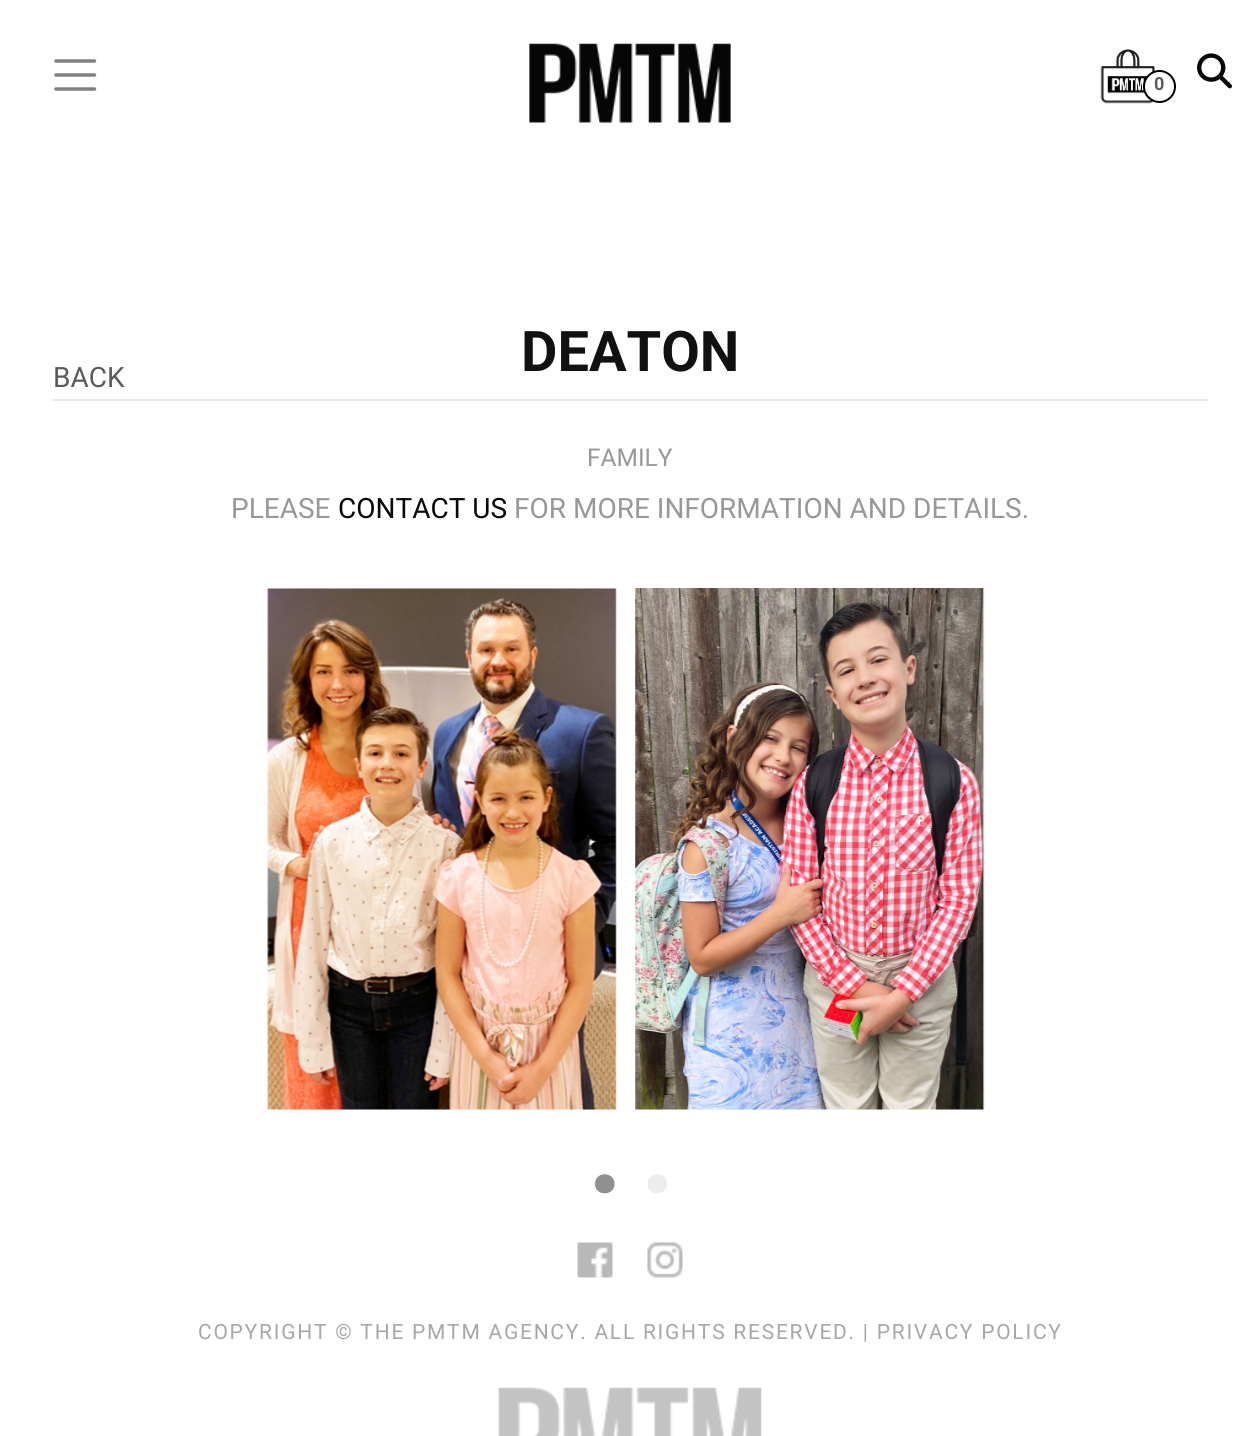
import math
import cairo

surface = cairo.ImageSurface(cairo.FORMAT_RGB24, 1259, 1436)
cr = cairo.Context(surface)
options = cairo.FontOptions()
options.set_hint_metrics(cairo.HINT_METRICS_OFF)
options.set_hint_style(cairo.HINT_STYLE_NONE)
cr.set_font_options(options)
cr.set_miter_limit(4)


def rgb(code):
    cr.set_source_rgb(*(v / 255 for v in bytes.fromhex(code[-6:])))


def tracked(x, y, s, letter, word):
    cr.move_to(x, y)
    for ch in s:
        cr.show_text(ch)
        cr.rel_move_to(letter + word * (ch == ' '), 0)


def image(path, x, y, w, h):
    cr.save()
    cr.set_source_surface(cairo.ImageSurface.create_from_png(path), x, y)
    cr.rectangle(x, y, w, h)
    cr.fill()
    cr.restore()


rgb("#ffffff")
cr.paint()
image("img/1.png", 529, 43, 202, 80)
cr.new_path()
cr.move_to(56, 61)
cr.line_to(94.5, 61)
cr.move_to(56, 75)
cr.line_to(94.5, 75)
cr.move_to(56, 89)
cr.line_to(94.5, 89)
rgb("#808080")
cr.set_line_width(3.5)
cr.set_line_cap(cairo.LINE_CAP_ROUND)
cr.stroke()
image("img/2.png", 1100, 49, 55, 55)
rgb("#ffffff")
cr.arc(1159.5, 86.5, 15.5, 0, 2 * math.pi)
cr.fill_preserve()
rgb("#000000")
cr.set_line_width(2)
cr.set_line_cap(cairo.LINE_CAP_BUTT)
cr.stroke()
image("img/3.png", 1197, 53, 35, 36)
rgb("#e6e6e6")
cr.rectangle(53, 399, 1155, 2)
cr.fill()
image("img/4.png", 267, 588, 350, 522)
image("img/5.png", 635, 588, 350, 522)
rgb("#909090")
cr.new_path()
cr.move_to(614.5, 1184)
cr.curve_to(614.5, 1171, 595, 1171, 595, 1184)
cr.curve_to(595, 1196.5, 614.5, 1196.5, 614.5, 1184)
cr.close_path()
cr.fill()
rgb("#ededed")
cr.new_path()
cr.move_to(667, 1184)
cr.curve_to(667, 1171, 647.5, 1171, 647.5, 1184)
cr.curve_to(647.5, 1196.5, 667, 1196.5, 667, 1184)
cr.close_path()
cr.fill()
image("img/6.png", 577, 1242, 36, 36)
image("img/7.png", 647, 1242, 36, 36)
image("img/8.png", 498, 1387, 264, 49)
cr.select_font_face("Roboto", cairo.FONT_SLANT_NORMAL, cairo.FONT_WEIGHT_BOLD)
cr.set_font_size(18)
rgb("#5a5a5a")
cr.move_to(1154, 90)
cr.show_text("0")
cr.set_font_size(56)
rgb("#111111")
cr.move_to(521, 371)
cr.show_text("DEATON")
cr.select_font_face("Roboto")
cr.set_font_size(28)
rgb("#5a5a5a")
cr.move_to(53, 387)
cr.show_text("BACK")
cr.set_font_size(24.5)
rgb("#989898")
cr.move_to(587, 466)
cr.show_text("FAMILY")
cr.set_font_size(28)
cr.move_to(231, 518)
cr.show_text("PLEASE")
rgb("#070707")
cr.move_to(338, 518)
cr.show_text("CONTACT US")
rgb("#989898")
cr.move_to(514, 518)
cr.show_text("FOR MORE INFORMATION AND DETAILS.")
cr.set_font_size(21)
rgb("#a7a7a7")
tracked(198, 1339, "COPYRIGHT © THE PMTM AGENCY. ALL RIGHTS RESERVED. | PRIVACY POLICY", 1.75, 0)
surface.write_to_png("page.png")
